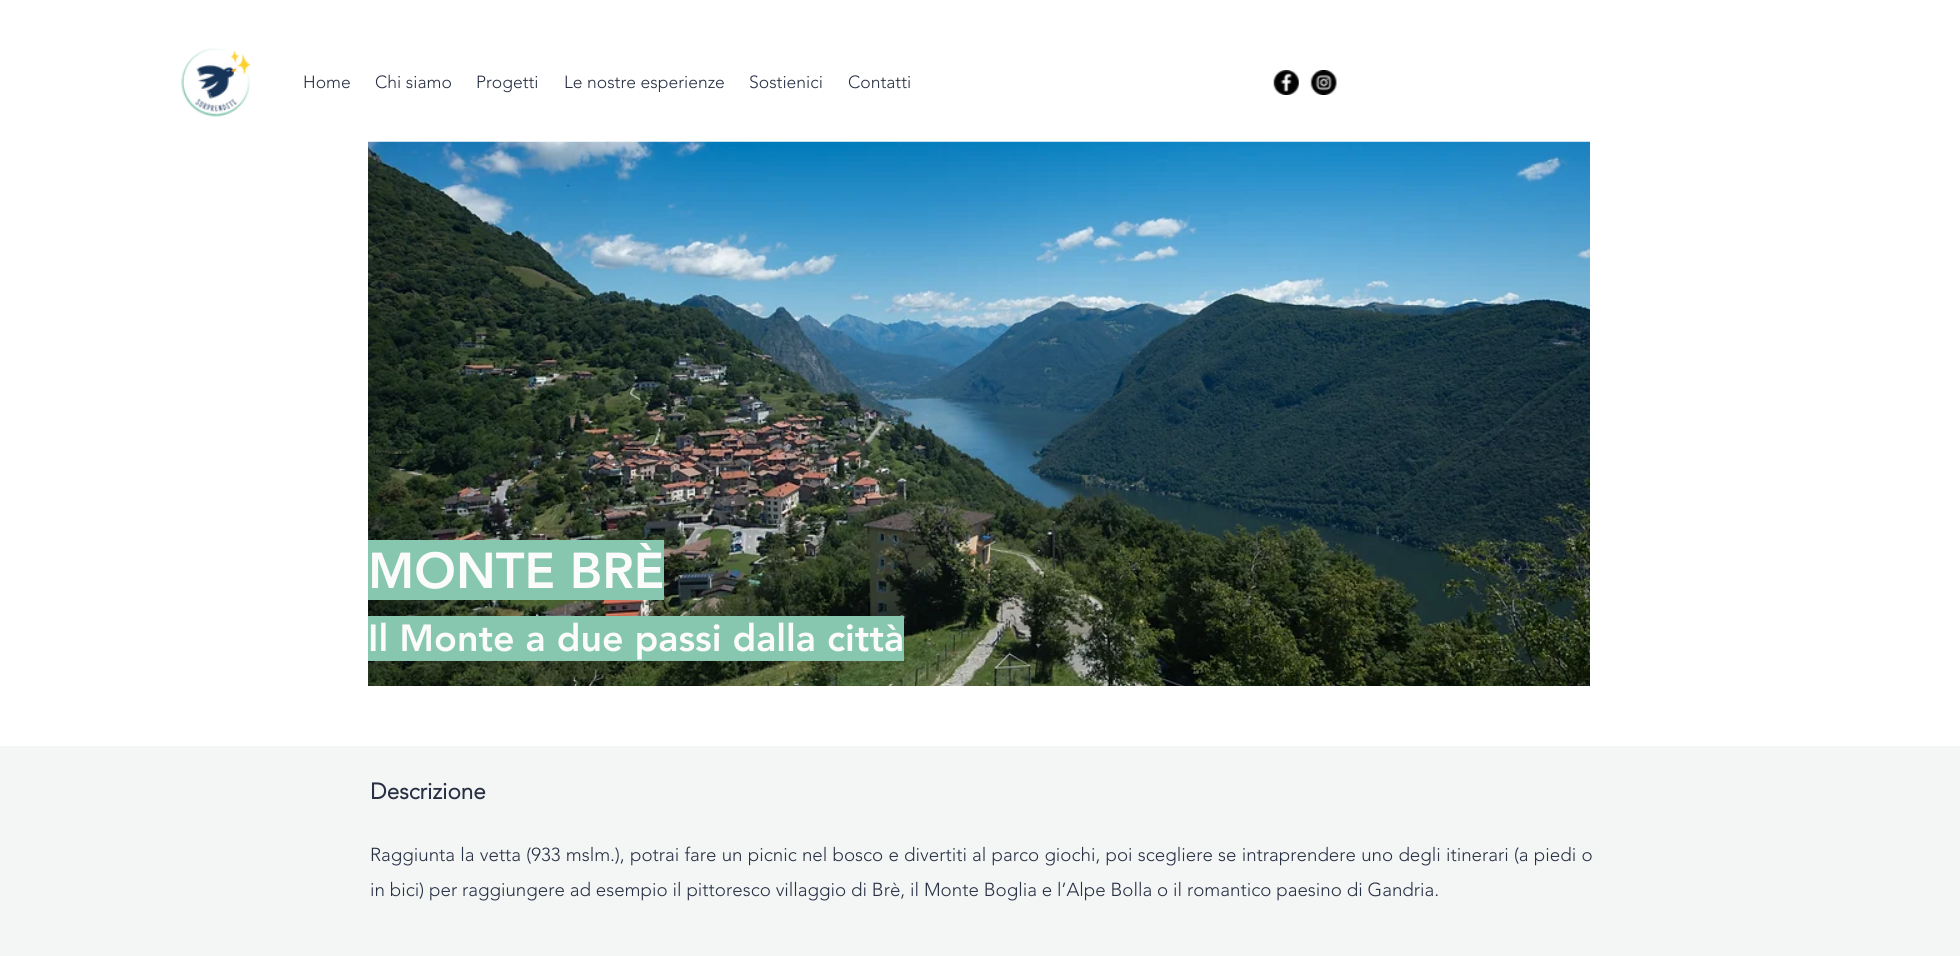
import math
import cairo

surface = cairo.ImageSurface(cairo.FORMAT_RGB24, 1960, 956)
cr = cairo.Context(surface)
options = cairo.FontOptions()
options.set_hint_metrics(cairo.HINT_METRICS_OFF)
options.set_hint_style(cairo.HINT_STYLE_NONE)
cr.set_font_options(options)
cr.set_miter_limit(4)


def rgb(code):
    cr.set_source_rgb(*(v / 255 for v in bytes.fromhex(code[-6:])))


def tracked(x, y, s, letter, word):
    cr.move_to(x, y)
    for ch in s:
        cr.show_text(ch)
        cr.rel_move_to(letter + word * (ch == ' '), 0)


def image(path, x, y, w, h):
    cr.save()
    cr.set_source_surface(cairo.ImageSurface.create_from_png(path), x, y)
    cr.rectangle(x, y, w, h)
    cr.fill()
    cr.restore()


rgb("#ffffff")
cr.paint()
image("img/1.png", 181, 48, 70, 69)
image("img/2.png", 1273, 70, 26, 25)
image("img/3.png", 1310, 70, 27, 25)
image("img/4.png", 368, 141, 1222, 545)
for x, y, w, h, color in [
    (368, 540, 296, 60, "#87c7af"),
    (368, 616, 536, 45, "#87c7af"),
    (0, 746, 1960, 210, "#f4f6f5"),
]:
    rgb(color)
    cr.rectangle(x, y, w, h)
    cr.fill()
cr.select_font_face("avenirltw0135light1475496 Light")
cr.set_font_size(17.5)
rgb("#283044")
for x, y, s in [
    (303, 88, "Home"),
    (375, 88, "Chi siamo"),
    (476, 88, "Progetti"),
    (564, 88, "Le nostre esperienze"),
    (749, 88, "Sostienici"),
    (848, 88, "Contatti"),
]:
    cr.move_to(x, y)
    cr.show_text(s)
cr.select_font_face("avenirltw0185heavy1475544 Black")
cr.set_font_size(50)
rgb("#fafbfa")
cr.move_to(368, 588)
cr.show_text("MONTE BRÈ")
cr.set_font_size(37.5)
cr.move_to(368, 651)
cr.show_text("Il Monte a due passi dalla città")
cr.select_font_face("avenirltw0135light1475496", cairo.FONT_SLANT_NORMAL, cairo.FONT_WEIGHT_BOLD)
cr.set_font_size(22.5)
rgb("#283044")
cr.move_to(370, 799)
cr.show_text("Descrizione")
cr.select_font_face("avenirltw0135light1475496 Light")
cr.set_font_size(18.75)
tracked(370, 861, "Raggiunta la vetta (933 mslm.), potrai fare un picnic nel bosco e divertiti al parco giochi, poi scegliere se intraprendere uno degli itinerari (a piedi o", 0, 0.35)
cr.move_to(370, 896)
cr.show_text("in bici) per raggiungere ad esempio il pittoresco villaggio di Brè, il Monte Boglia e l’Alpe Bolla o il romantico paesino di Gandria.")
surface.write_to_png("page.png")
